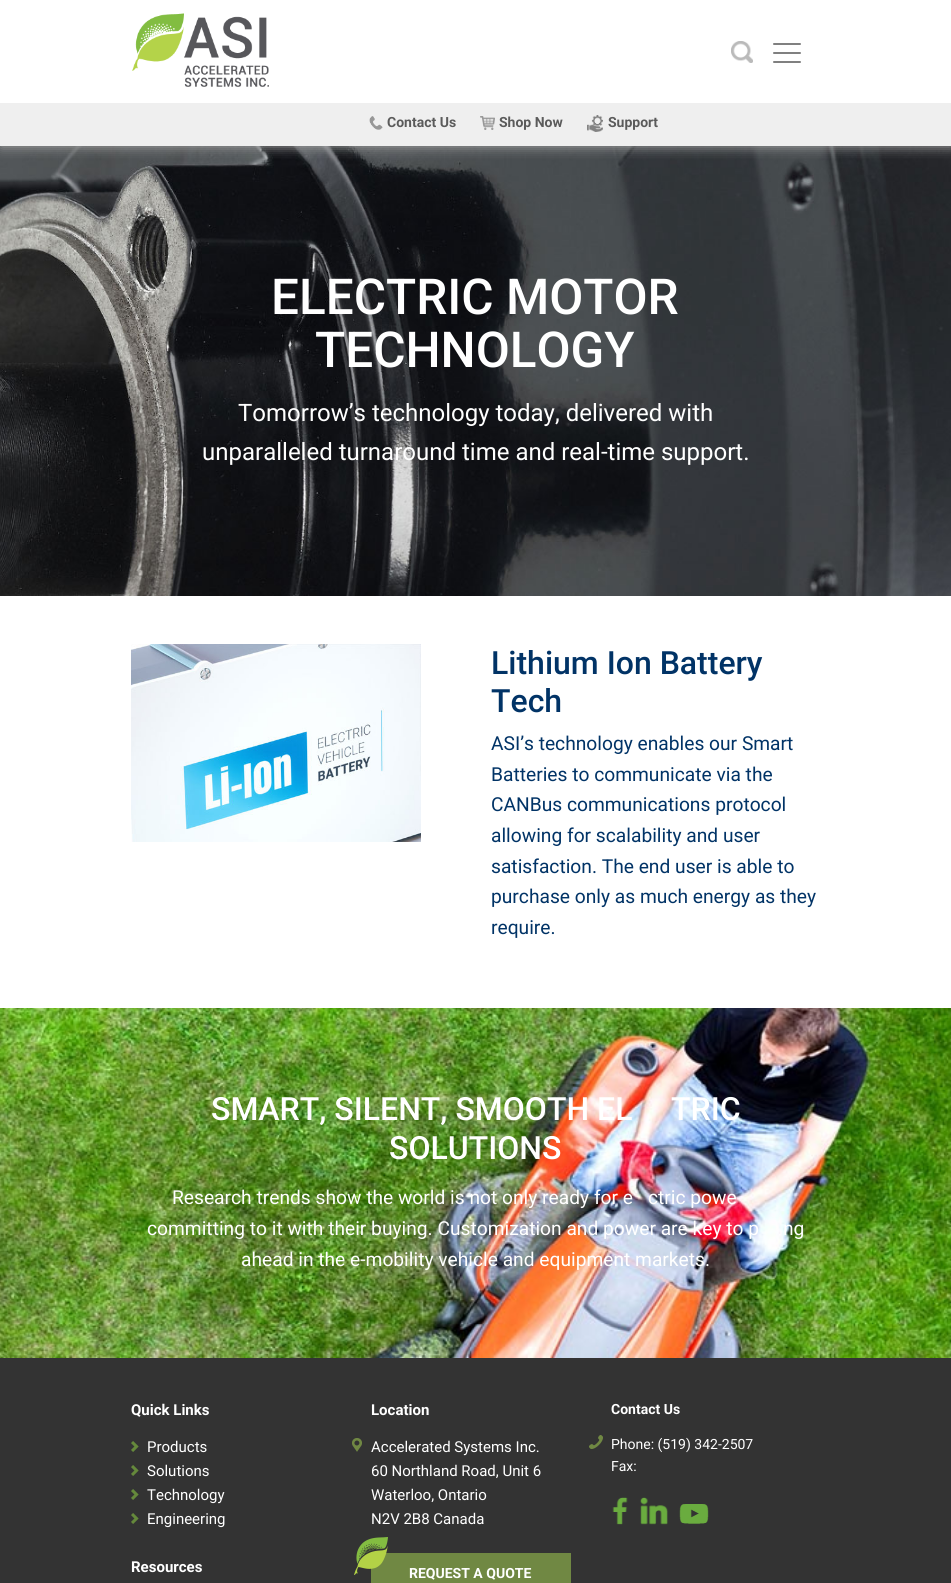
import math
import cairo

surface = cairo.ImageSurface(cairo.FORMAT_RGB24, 951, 1583)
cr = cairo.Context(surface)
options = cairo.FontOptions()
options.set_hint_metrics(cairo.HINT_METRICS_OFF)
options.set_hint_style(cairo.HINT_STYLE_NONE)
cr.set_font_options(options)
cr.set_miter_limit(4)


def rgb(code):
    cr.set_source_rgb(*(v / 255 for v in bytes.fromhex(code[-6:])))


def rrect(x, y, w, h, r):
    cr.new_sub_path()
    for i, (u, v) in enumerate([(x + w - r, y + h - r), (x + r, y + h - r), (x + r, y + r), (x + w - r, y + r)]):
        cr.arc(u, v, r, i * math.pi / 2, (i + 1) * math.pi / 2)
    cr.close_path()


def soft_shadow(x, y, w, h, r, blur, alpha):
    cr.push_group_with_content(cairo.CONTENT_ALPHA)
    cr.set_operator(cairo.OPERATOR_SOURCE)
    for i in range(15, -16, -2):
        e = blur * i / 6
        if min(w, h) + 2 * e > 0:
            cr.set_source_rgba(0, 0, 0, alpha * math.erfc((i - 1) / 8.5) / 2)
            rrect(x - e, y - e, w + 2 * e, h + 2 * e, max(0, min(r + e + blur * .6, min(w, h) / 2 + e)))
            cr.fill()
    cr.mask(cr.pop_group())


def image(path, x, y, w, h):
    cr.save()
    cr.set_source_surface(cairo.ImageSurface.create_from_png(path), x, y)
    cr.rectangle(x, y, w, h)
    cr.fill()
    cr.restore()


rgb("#ffffff")
cr.paint()
image("img/6.png", 0, 146, 951, 450)
cr.save()
cr.rectangle(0, 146, 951, 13)
cr.clip()
rgb("#a4a4a4")
soft_shadow(1, 1, 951, 146, 0, 6, 1)
cr.restore()
image("img/1.png", 132, 13, 137, 74)
image("img/2.png", 731, 41, 22, 22)
rgb("#808080")
rrect(773, 43, 28, 2, 1)
cr.fill()
rrect(773, 52, 28, 2, 1)
cr.fill()
rrect(773, 61, 28, 2, 1)
cr.fill()
rgb("#efefef")
cr.rectangle(0, 103, 951, 43)
cr.fill()
image("img/3.png", 369, 116, 14, 14)
image("img/4.png", 480, 116, 15, 14)
image("img/5.png", 587, 115, 16, 17)
image("img/7.png", 131, 644, 290, 198)
image("img/8.png", 0, 1008, 951, 350)
rgb("#333333")
cr.rectangle(0, 1358, 951, 225)
cr.fill()
image("img/9.png", 131, 1441, 8, 11)
image("img/9.png", 131, 1465, 8, 11)
image("img/9.png", 131, 1489, 8, 11)
image("img/9.png", 131, 1513, 8, 11)
image("img/10.png", 352, 1438, 10, 14)
image("img/11.png", 589, 1435, 14, 14)
image("img/12.png", 612, 1497, 16, 28)
image("img/13.png", 640, 1497, 28, 28)
image("img/14.png", 679, 1504, 30, 20)
rgb("#708843")
cr.rectangle(371, 1553, 200, 30)
cr.fill()
image("img/15.png", 354, 1537, 34, 38)
cr.select_font_face("Roboto", cairo.FONT_SLANT_NORMAL, cairo.FONT_WEIGHT_BOLD)
cr.set_font_size(14)
rgb("#5b5b5b")
for x, y, s in [
    (387, 127, "Contact Us"),
    (499, 127, "Shop Now"),
    (608, 127, "Support"),
]:
    cr.move_to(x, y)
    cr.show_text(s)
cr.select_font_face("Roboto Medium")
cr.set_font_size(49.5)
rgb("#ffffff")
cr.move_to(271, 314)
cr.show_text("ELECTRIC MOTOR")
cr.move_to(315, 367)
cr.show_text("TECHNOLOGY")
cr.select_font_face("Roboto")
cr.set_font_size(24)
cr.move_to(238, 421)
cr.show_text("Tomorrow’s technology today, delivered with")
cr.move_to(202, 460)
cr.show_text("unparalleled turnaround time and real-time support.")
cr.select_font_face("Roboto Medium")
cr.set_font_size(32)
rgb("#013366")
cr.move_to(491, 674)
cr.show_text("Lithium Ion Battery")
cr.move_to(491, 712)
cr.show_text("Tech")
cr.select_font_face("Roboto")
cr.set_font_size(19.2)
for x, y, s in [
    (491, 750, "ASI’s technology enables our Smart"),
    (491, 781, "Batteries to communicate via the"),
    (491, 811, "CANBus communications protocol"),
    (491, 842, "allowing for scalability and user"),
    (491, 873, "satisfaction. The end user is able to"),
    (491, 903, "purchase only as much energy as they"),
    (491, 934, "require."),
]:
    cr.move_to(x, y)
    cr.show_text(s)
cr.select_font_face("Roboto Medium")
cr.set_font_size(32)
rgb("#ffffff")
for x, y, s in [
    (211, 1120, "SMART, SILENT, SMOOTH EL"),
    (671, 1120, "TRIC"),
    (389, 1159, "SOLUTIONS"),
]:
    cr.move_to(x, y)
    cr.show_text(s)
cr.select_font_face("Roboto")
cr.set_font_size(19.2)
for x, y, s in [
    (172, 1204, "Research trends show the world is not only ready for e"),
    (648, 1204, "ctric powe"),
    (147, 1235, "committing to it with their buying. Customization and power are key to p"),
    (783, 1235, "ng"),
    (241, 1266, "ahead in the e-mobility vehicle and equipment markets."),
]:
    cr.move_to(x, y)
    cr.show_text(s)
cr.select_font_face("Roboto", cairo.FONT_SLANT_NORMAL, cairo.FONT_WEIGHT_BOLD)
cr.set_font_size(15)
cr.move_to(131, 1415)
cr.show_text("Quick Links")
cr.select_font_face("Roboto")
for x, y, s in [
    (147, 1452, "Products"),
    (147, 1476, "Solutions"),
    (147, 1500, "Technology"),
    (147, 1524, "Engineering"),
]:
    cr.move_to(x, y)
    cr.show_text(s)
cr.select_font_face("Roboto", cairo.FONT_SLANT_NORMAL, cairo.FONT_WEIGHT_BOLD)
cr.move_to(131, 1572)
cr.show_text("Resources")
cr.move_to(371, 1415)
cr.show_text("Location")
cr.select_font_face("Roboto")
for x, y, s in [
    (371, 1452, "Accelerated Systems Inc."),
    (371, 1476, "60 Northland Road, Unit 6"),
    (371, 1500, "Waterloo, Ontario"),
    (371, 1524, "N2V 2B8 Canada"),
]:
    cr.move_to(x, y)
    cr.show_text(s)
cr.select_font_face("Roboto", cairo.FONT_SLANT_NORMAL, cairo.FONT_WEIGHT_BOLD)
cr.set_font_size(14)
cr.move_to(611, 1414)
cr.show_text("Contact Us")
cr.select_font_face("Roboto")
cr.move_to(611, 1449)
cr.show_text("Phone: (519) 342-2507")
cr.move_to(611, 1471)
cr.show_text("Fax:")
cr.select_font_face("Roboto", cairo.FONT_SLANT_NORMAL, cairo.FONT_WEIGHT_BOLD)
cr.move_to(409, 1578)
cr.show_text("REQUEST A QUOTE")
surface.write_to_png("page.png")
